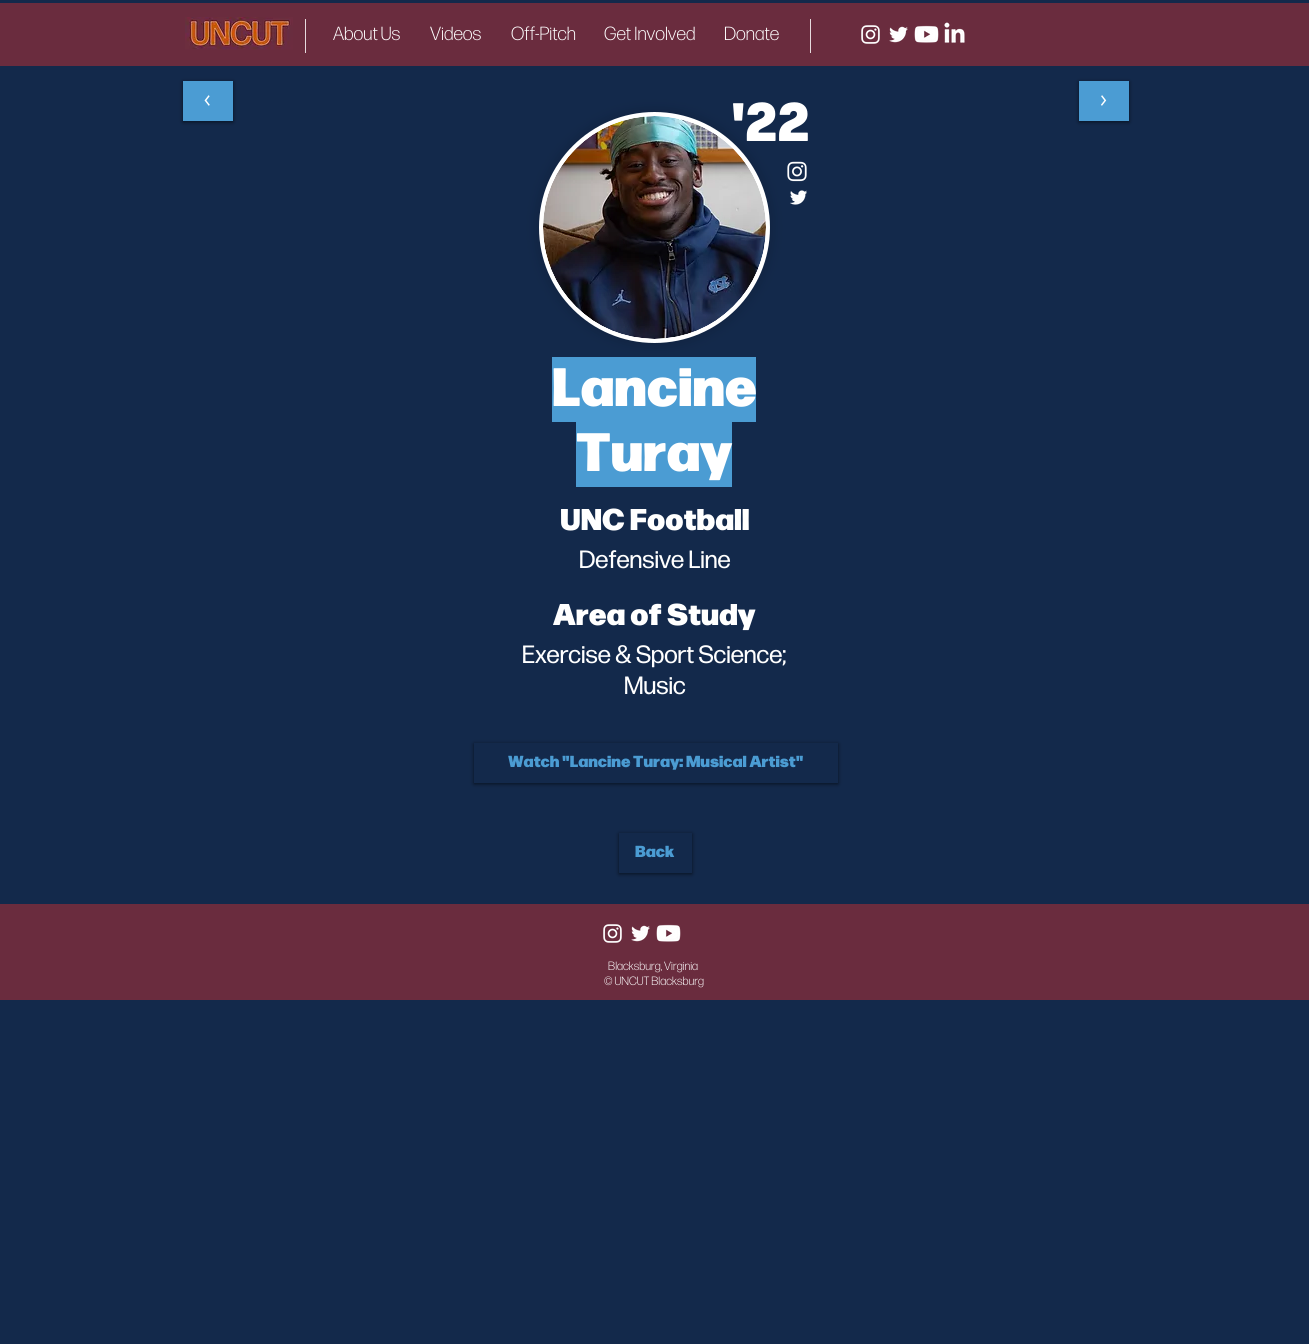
import math
import cairo

surface = cairo.ImageSurface(cairo.FORMAT_RGB24, 1309, 1344)
cr = cairo.Context(surface)
options = cairo.FontOptions()
options.set_hint_metrics(cairo.HINT_METRICS_OFF)
options.set_hint_style(cairo.HINT_STYLE_NONE)
cr.set_font_options(options)
cr.set_miter_limit(4)


def rgb(code):
    cr.set_source_rgb(*(v / 255 for v in bytes.fromhex(code[-6:])))


def rrect(x, y, w, h, r):
    cr.new_sub_path()
    for i, (u, v) in enumerate([(x + w - r, y + h - r), (x + r, y + h - r), (x + r, y + r), (x + w - r, y + r)]):
        cr.arc(u, v, r, i * math.pi / 2, (i + 1) * math.pi / 2)
    cr.close_path()


def soft_shadow(x, y, w, h, r, blur, alpha):
    cr.push_group_with_content(cairo.CONTENT_ALPHA)
    cr.set_operator(cairo.OPERATOR_SOURCE)
    for i in range(15, -16, -2):
        e = blur * i / 6
        if min(w, h) + 2 * e > 0:
            cr.set_source_rgba(0, 0, 0, alpha * math.erfc((i - 1) / 8.5) / 2)
            rrect(x - e, y - e, w + 2 * e, h + 2 * e, max(0, min(r + e + blur * .6, min(w, h) / 2 + e)))
            cr.fill()
    cr.mask(cr.pop_group())


def image(path, x, y, w, h):
    cr.save()
    cr.set_source_surface(cairo.ImageSurface.create_from_png(path), x, y)
    cr.rectangle(x, y, w, h)
    cr.fill()
    cr.restore()


rgb("#13294b")
cr.paint()
rgb("#6a2c3e")
cr.rectangle(0, 3, 1309, 63)
cr.fill()
image("img/1.png", 185, 17, 108, 33)
rgb("#e6dbde")
cr.rectangle(305, 19, 1, 34)
cr.fill()
cr.rectangle(810, 19, 1, 34)
cr.fill()
image("img/2.png", 861, 25, 19, 19)
image("img/3.png", 889, 26, 19, 17)
image("img/4.png", 914, 25, 25, 18)
image("img/5.png", 944, 22, 21, 21)
rgb("#000000")
soft_shadow(183, 82, 50, 40, 0, 2, 0.6)
rgb("#4b9cd3")
cr.rectangle(183, 81, 50, 40)
cr.fill()
rgb("#000000")
soft_shadow(1079, 82, 50, 40, 0, 2, 0.6)
rgb("#4b9cd3")
cr.rectangle(1079, 81, 50, 40)
cr.fill()
rgb("#000000")
soft_shadow(539, 112, 231, 231, 115.5, 7, 0.2)
rgb("#ffffff")
cr.arc(654.5, 227.5, 113.5, 0, 2 * math.pi)
cr.fill_preserve()
cr.set_line_width(4)
cr.stroke()
image("img/6.png", 543, 116, 223, 223)
image("img/7.png", 787, 161, 20, 21)
image("img/8.png", 790, 190, 17, 15)
rgb("#4b9cd3")
cr.rectangle(552, 357, 204, 65)
cr.fill()
cr.rectangle(576, 422, 156, 65)
cr.fill()
cr.save()
cr.set_fill_rule(cairo.FILL_RULE_EVEN_ODD)
cr.new_path()
cr.move_to(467, 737)
cr.line_to(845, 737)
cr.line_to(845, 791)
cr.line_to(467, 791)
cr.close_path()
cr.move_to(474, 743)
cr.line_to(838, 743)
cr.line_to(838, 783)
cr.line_to(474, 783)
cr.close_path()
cr.clip()
rgb("#000000")
soft_shadow(474, 744, 364, 40, 0, 2, 0.6)
cr.restore()
cr.save()
cr.set_fill_rule(cairo.FILL_RULE_EVEN_ODD)
cr.new_path()
cr.move_to(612, 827)
cr.line_to(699, 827)
cr.line_to(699, 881)
cr.line_to(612, 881)
cr.close_path()
cr.move_to(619, 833)
cr.line_to(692, 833)
cr.line_to(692, 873)
cr.line_to(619, 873)
cr.close_path()
cr.clip()
rgb("#000000")
soft_shadow(619, 834, 73, 40, 0, 2, 0.6)
cr.restore()
rgb("#6a2c3e")
cr.rectangle(0, 904, 1309, 96)
cr.fill()
image("img/2.png", 603, 924, 19, 19)
image("img/3.png", 631, 925, 19, 17)
image("img/4.png", 656, 924, 25, 18)
cr.select_font_face("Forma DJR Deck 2 Light")
cr.set_font_size(19)
rgb("#ffffff")
for x, y, s in [
    (333, 40, "About Us"),
    (430, 40, "Videos"),
    (511, 40, "Off-Pitch"),
    (604, 40, "Get Involved"),
    (724, 40, "Donate"),
]:
    cr.move_to(x, y)
    cr.show_text(s)
cr.select_font_face("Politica", cairo.FONT_SLANT_NORMAL, cairo.FONT_WEIGHT_BOLD)
cr.set_font_size(20)
cr.move_to(204, 109)
cr.show_text("<")
cr.move_to(1100, 109)
cr.show_text(">")
cr.select_font_face("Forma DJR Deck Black")
cr.set_font_size(54)
for x, y, s in [
    (731, 141, "'22"),
    (552, 406, "Lancine"),
    (576, 471, "Turay"),
]:
    cr.move_to(x, y)
    cr.show_text(s)
cr.set_font_size(30)
cr.move_to(560, 530)
cr.show_text("UNC Football")
cr.select_font_face("Forma DJR Deck")
cr.set_font_size(25)
cr.move_to(579, 568)
cr.show_text("Defensive Line")
cr.select_font_face("Forma DJR Deck Black")
cr.set_font_size(30)
cr.move_to(553, 625)
cr.show_text("Area of Study")
cr.select_font_face("Forma DJR Deck")
cr.set_font_size(25)
cr.move_to(522, 663)
cr.show_text("Exercise & Sport Science;")
cr.move_to(624, 694)
cr.show_text("Music")
cr.select_font_face("Forma DJR Deck Black")
cr.set_font_size(16)
rgb("#4b9cd3")
cr.move_to(508, 767)
cr.show_text("Watch \"Lancine Turay: Musical Artist\"")
cr.move_to(635, 857)
cr.show_text("Back")
cr.select_font_face("Forma DJR Deck Light")
cr.set_font_size(12)
rgb("#ffffff")
cr.move_to(608, 970)
cr.show_text("Blacksburg, Virginia")
cr.move_to(604, 985)
cr.show_text("© UNCUT Blacksburg")
surface.write_to_png("page.png")
